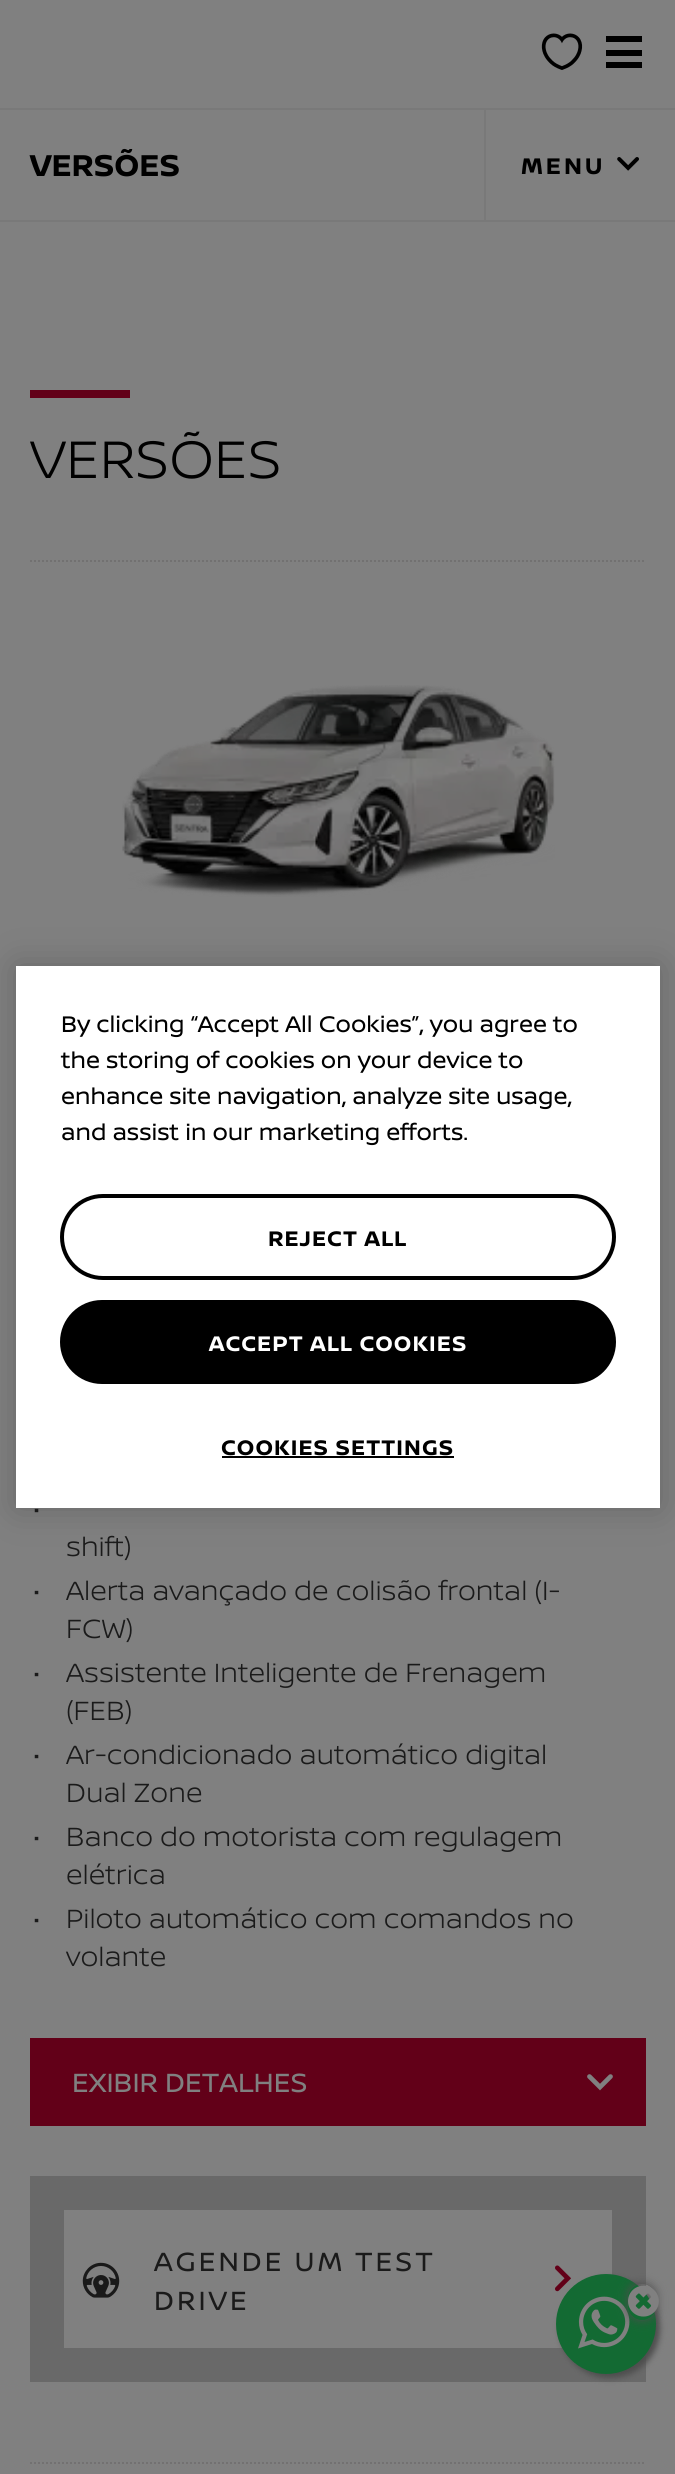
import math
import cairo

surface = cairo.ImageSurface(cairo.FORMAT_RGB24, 675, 2474)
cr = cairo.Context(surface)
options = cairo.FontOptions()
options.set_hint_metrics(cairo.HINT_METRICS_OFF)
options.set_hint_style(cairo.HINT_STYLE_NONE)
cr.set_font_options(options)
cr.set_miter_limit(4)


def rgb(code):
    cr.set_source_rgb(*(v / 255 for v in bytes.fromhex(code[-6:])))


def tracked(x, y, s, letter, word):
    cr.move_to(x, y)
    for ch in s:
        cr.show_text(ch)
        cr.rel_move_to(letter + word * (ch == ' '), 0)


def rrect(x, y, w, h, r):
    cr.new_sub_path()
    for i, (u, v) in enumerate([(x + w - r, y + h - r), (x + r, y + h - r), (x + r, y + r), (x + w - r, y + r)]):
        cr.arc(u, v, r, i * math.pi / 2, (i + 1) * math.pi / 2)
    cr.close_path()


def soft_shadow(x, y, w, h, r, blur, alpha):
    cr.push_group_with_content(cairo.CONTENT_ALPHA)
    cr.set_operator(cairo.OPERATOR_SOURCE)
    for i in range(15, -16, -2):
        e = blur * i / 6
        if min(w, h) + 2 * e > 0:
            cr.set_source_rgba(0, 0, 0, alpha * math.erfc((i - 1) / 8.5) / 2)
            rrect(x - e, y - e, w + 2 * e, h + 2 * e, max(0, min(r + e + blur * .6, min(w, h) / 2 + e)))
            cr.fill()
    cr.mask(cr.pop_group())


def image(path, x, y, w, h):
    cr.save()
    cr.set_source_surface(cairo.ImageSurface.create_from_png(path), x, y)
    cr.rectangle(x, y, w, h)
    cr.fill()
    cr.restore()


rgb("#808080")
cr.paint()
image("img/1.png", 541, 33, 42, 37)
for x, y, w, h, color in [
    (606, 36, 36, 6, "#000000"),
    (606, 50, 36, 6, "#000000"),
    (606, 62, 36, 6, "#000000"),
    (0, 108, 675, 2, "#797979"),
    (0, 220, 675, 2, "#797979"),
    (484, 110, 2, 110, "#797979"),
]:
    rgb(color)
    cr.rectangle(x, y, w, h)
    cr.fill()
image("img/2.png", 617, 157, 22, 14)
rgb("#620018")
cr.rectangle(30, 390, 100, 8)
cr.fill()
cr.new_path()
cr.move_to(30, 561)
cr.line_to(646, 561)
rgb("#727171")
cr.set_dash([2, 2])
cr.stroke()
image("img/3.png", 122, 685, 433, 212)
rgb("#620018")
cr.rectangle(30, 2038, 616, 88)
cr.fill()
image("img/4.png", 587, 2074, 26, 17)
rgb("#696969")
cr.rectangle(30, 2176, 616, 206)
cr.fill()
rgb("#808080")
cr.rectangle(64, 2210, 548, 138)
cr.fill()
image("img/5.png", 82, 2262, 38, 36)
image("img/6.png", 555, 2265, 16, 27)
cr.new_path()
cr.move_to(30, 2463)
cr.line_to(646, 2463)
rgb("#727171")
cr.stroke()
rgb("#000000")
soft_shadow(16, 966, 644, 542, 0, 18, 0.2)
rgb("#ffffff")
cr.rectangle(16, 966, 644, 542)
cr.fill()
rrect(62, 1196, 552, 82, 41)
rgb("#000000")
cr.set_line_width(4)
cr.set_dash([])
cr.stroke()
rrect(61, 1301, 554, 82, 41)
cr.fill_preserve()
cr.set_line_width(2)
cr.stroke()
cr.rectangle(222, 1456, 232, 2)
cr.fill()
rgb("#4d4d4d")
soft_shadow(560, 2278, 100, 100, 50, 3, 1)
rgb("#136a33")
cr.arc(606, 2324, 50, 0, 2 * math.pi)
cr.fill()
image("img/7.png", 578, 2296, 52, 53)
cr.save()
cr.set_fill_rule(cairo.FILL_RULE_EVEN_ODD)
cr.new_path()
cr.move_to(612, 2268)
cr.line_to(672, 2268)
cr.line_to(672, 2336)
cr.line_to(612, 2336)
cr.close_path()
cr.move_to(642, 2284)
cr.curve_to(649.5, 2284, 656, 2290.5, 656, 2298)
cr.line_to(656, 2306)
cr.curve_to(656, 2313.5, 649.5, 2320, 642, 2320)
cr.curve_to(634.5, 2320, 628, 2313.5, 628, 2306)
cr.line_to(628, 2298)
cr.curve_to(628, 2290.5, 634.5, 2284, 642, 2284)
cr.close_path()
cr.clip()
rgb("#4d4d4d")
soft_shadow(628, 2284, 28, 36, 14, 5, 1)
cr.restore()
image("img/8.png", 628, 2285, 31, 32)
cr.select_font_face("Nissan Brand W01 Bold", cairo.FONT_SLANT_NORMAL, cairo.FONT_WEIGHT_BOLD)
cr.set_font_size(32)
rgb("#000000")
cr.move_to(30, 176)
cr.show_text("VERSÕES")
cr.set_font_size(24)
tracked(521, 174, "MENU", 3, 0)
cr.select_font_face("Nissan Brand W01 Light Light")
cr.set_font_size(56)
tracked(30, 478, "VERSÕES", 0.25, 0)
cr.set_font_size(50)
rgb("#1a1a1a")
cr.move_to(32, 1526)
cr.show_text("·")
cr.set_font_size(28)
cr.move_to(66, 1556)
cr.show_text("shift)")
cr.set_font_size(50)
cr.move_to(32, 1608)
cr.show_text("·")
cr.set_font_size(28)
cr.move_to(66, 1600)
cr.show_text("Alerta avançado de colisão frontal (I-")
cr.move_to(66, 1638)
cr.show_text("FCW)")
cr.set_font_size(50)
cr.move_to(32, 1690)
cr.show_text("·")
cr.set_font_size(28)
cr.move_to(66, 1682)
cr.show_text("Assistente Inteligente de Frenagem")
cr.move_to(66, 1720)
cr.show_text("(FEB)")
cr.set_font_size(50)
cr.move_to(32, 1772)
cr.show_text("·")
cr.set_font_size(28)
cr.move_to(66, 1764)
cr.show_text("Ar-condicionado automático digital")
cr.move_to(66, 1802)
cr.show_text("Dual Zone")
cr.set_font_size(50)
cr.move_to(32, 1854)
cr.show_text("·")
cr.set_font_size(28)
cr.move_to(66, 1846)
cr.show_text("Banco do motorista com regulagem")
cr.move_to(66, 1884)
cr.show_text("elétrica")
cr.set_font_size(50)
cr.move_to(32, 1936)
cr.show_text("·")
cr.set_font_size(28)
cr.move_to(66, 1928)
cr.show_text("Piloto automático com comandos no")
cr.move_to(66, 1966)
cr.show_text("volante")
cr.select_font_face("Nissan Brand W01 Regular")
rgb("#808080")
cr.move_to(72, 2092)
cr.show_text("EXIBIR DETALHES")
rgb("#1a1a1a")
tracked(154, 2271, "AGENDE UM TEST", 3, 0)
tracked(154, 2310, "DRIVE", 3, 0)
cr.set_font_size(24)
rgb("#000000")
for x, y, s in [
    (61, 1032, "By clicking “Accept All Cookies”, you agree to"),
    (61, 1068, "the storing of cookies on your device to"),
    (61, 1104, "enhance site navigation, analyze site usage,"),
    (61, 1140, "and assist in our marketing efforts."),
]:
    cr.move_to(x, y)
    cr.show_text(s)
cr.select_font_face("Nissan Brand W01 Bold", cairo.FONT_SLANT_NORMAL, cairo.FONT_WEIGHT_BOLD)
cr.set_font_size(22.4)
tracked(268, 1246, "REJECT ALL", 1.1, 0)
rgb("#ffffff")
tracked(209, 1351, "ACCEPT ALL COOKIES", 1.1, 0)
rgb("#000000")
tracked(221, 1455, "COOKIES SETTINGS", 1.1, 0)
surface.write_to_png("page.png")
